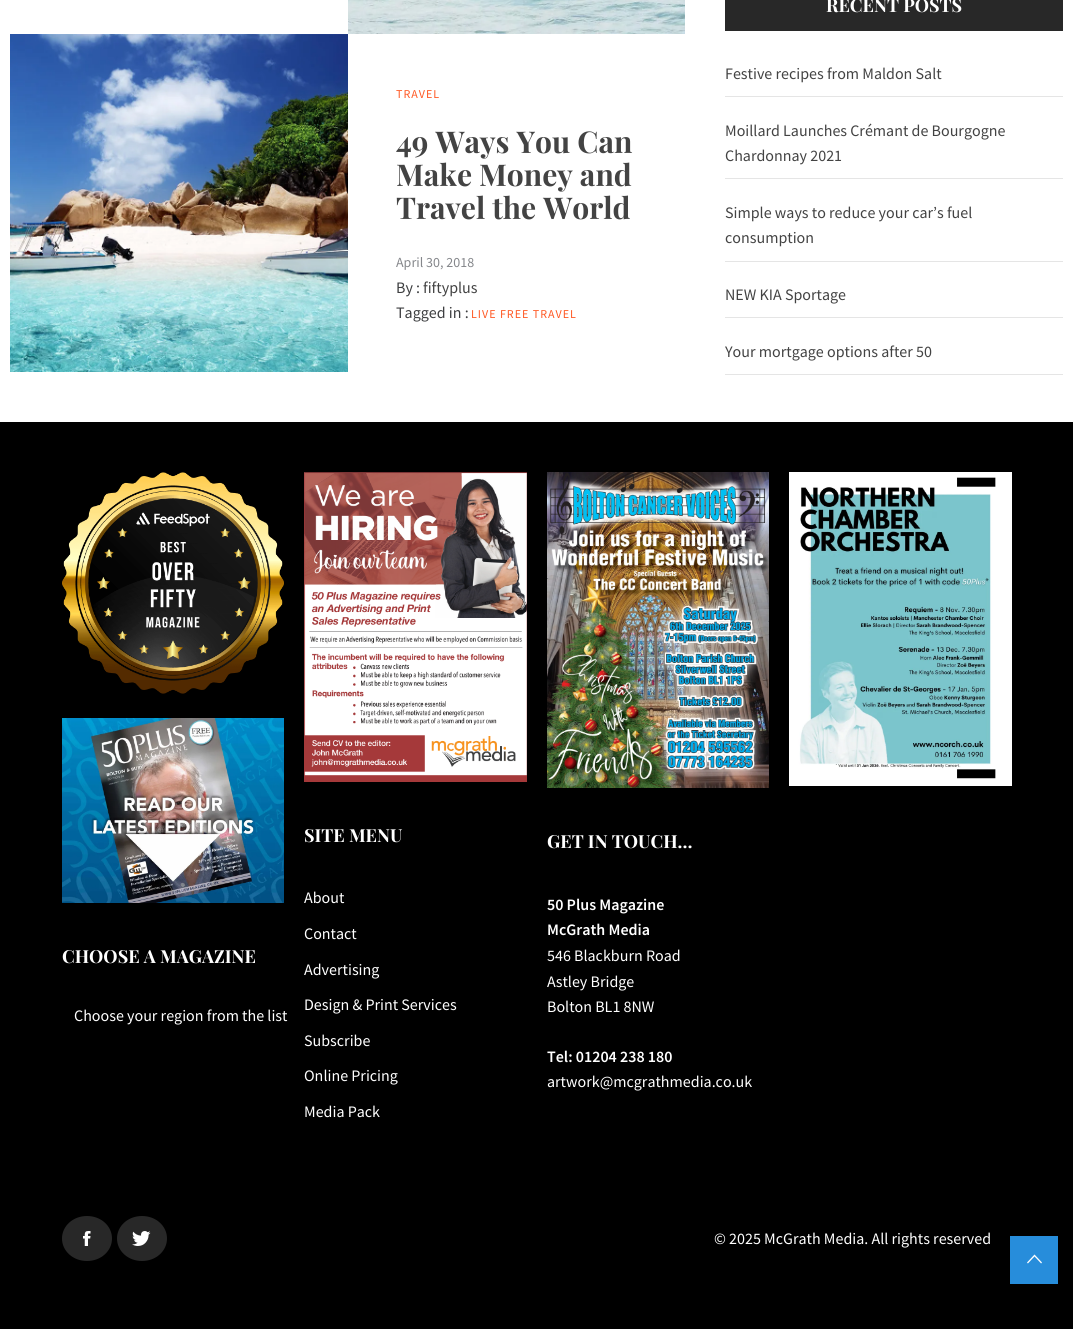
import math
import cairo

surface = cairo.ImageSurface(cairo.FORMAT_RGB24, 1073, 1329)
cr = cairo.Context(surface)
options = cairo.FontOptions()
options.set_hint_metrics(cairo.HINT_METRICS_OFF)
options.set_hint_style(cairo.HINT_STYLE_NONE)
cr.set_font_options(options)
cr.set_miter_limit(4)


def rgb(code):
    cr.set_source_rgb(*(v / 255 for v in bytes.fromhex(code[-6:])))


def tracked(x, y, s, letter, word):
    cr.move_to(x, y)
    for ch in s:
        cr.show_text(ch)
        cr.rel_move_to(letter + word * (ch == ' '), 0)


def image(path, x, y, w, h):
    cr.save()
    cr.set_source_surface(cairo.ImageSurface.create_from_png(path), x, y)
    cr.rectangle(x, y, w, h)
    cr.fill()
    cr.restore()


rgb("#ffffff")
cr.paint()
image("img/1.png", 348, 0, 337, 34)
image("img/2.png", 10, 34, 338, 338)
for x, y, w, h, color in [
    (725, 0, 338, 31, "#282828"),
    (725, 96, 338, 1, "#e5e5e5"),
    (725, 178, 338, 1, "#e5e5e5"),
    (725, 261, 338, 1, "#e5e5e5"),
    (725, 317, 338, 1, "#e5e5e5"),
    (725, 374, 338, 1, "#e5e5e5"),
    (0, 422, 1073, 907, "#000000"),
]:
    rgb(color)
    cr.rectangle(x, y, w, h)
    cr.fill()
image("img/3.png", 789, 472, 223, 314)
image("img/4.png", 62, 472, 222, 222)
image("img/5.png", 62, 718, 222, 185)
image("img/6.png", 304, 472, 223, 310)
image("img/7.png", 547, 472, 222, 316)
rgb("#282828")
cr.new_path()
cr.move_to(87, 1216)
cr.curve_to(101, 1216, 112, 1226, 112, 1238.5)
cr.curve_to(112, 1251, 101, 1261, 87, 1261)
cr.curve_to(73, 1261, 62, 1251, 62, 1238.5)
cr.curve_to(62, 1226, 73, 1216, 87, 1216)
cr.close_path()
cr.fill()
image("img/8.png", 83, 1231, 8, 15)
cr.new_path()
cr.move_to(142, 1216)
cr.curve_to(156, 1216, 167, 1226, 167, 1238.5)
cr.curve_to(167, 1251, 156, 1261, 142, 1261)
cr.curve_to(128, 1261, 117, 1251, 117, 1238.5)
cr.curve_to(117, 1226, 128, 1216, 142, 1216)
cr.close_path()
cr.fill()
image("img/9.png", 132, 1231, 19, 15)
rgb("#278ddb")
cr.rectangle(1010, 1236, 48, 48)
cr.fill()
image("img/10.png", 1027, 1254, 15, 10)
cr.select_font_face("Source Sans Pro")
cr.set_font_size(12)
rgb("#ff5722")
tracked(396, 98, "TRAVEL", 1, 0)
cr.select_font_face("Playfair Display", cairo.FONT_SLANT_NORMAL, cairo.FONT_WEIGHT_BOLD)
cr.set_font_size(30)
rgb("#434343")
for x, y, s in [
    (396, 153, "49 Ways You Can"),
    (396, 186, "Make Money and"),
    (396, 219, "Travel the World"),
]:
    cr.move_to(x, y)
    cr.show_text(s)
cr.select_font_face("Source Sans Pro")
cr.set_font_size(14)
rgb("#85878b")
cr.move_to(396, 267)
cr.show_text("April 30, 2018")
cr.set_font_size(16)
rgb("#3d3e40")
cr.move_to(396, 293)
cr.show_text("By :")
rgb("#434343")
cr.move_to(423, 293)
cr.show_text("fiftyplus")
rgb("#3d3e40")
cr.move_to(396, 318)
cr.show_text("Tagged in :")
cr.set_font_size(12)
rgb("#ff5722")
tracked(471, 318, "LIVE FREE TRAVEL", 1, 0)
cr.select_font_face("Playfair Display", cairo.FONT_SLANT_NORMAL, cairo.FONT_WEIGHT_BOLD)
cr.set_font_size(18)
rgb("#ffffff")
cr.move_to(826, 12)
cr.show_text("RECENT POSTS")
cr.select_font_face("Source Sans Pro")
cr.set_font_size(16)
rgb("#434343")
for x, y, s in [
    (725, 79, "Festive recipes from Maldon Salt"),
    (725, 136, "Moillard Launches Crémant de Bourgogne"),
    (725, 161, "Chardonnay 2021"),
    (725, 218, "Simple ways to reduce your car’s fuel"),
    (725, 243, "consumption"),
    (725, 300, "NEW KIA Sportage"),
    (725, 357, "Your mortgage options after 50"),
]:
    cr.move_to(x, y)
    cr.show_text(s)
cr.select_font_face("Playfair Display", cairo.FONT_SLANT_NORMAL, cairo.FONT_WEIGHT_BOLD)
cr.set_font_size(18)
rgb("#ffffff")
cr.move_to(62, 963)
cr.show_text("CHOOSE A MAGAZINE")
cr.select_font_face("Source Sans Pro")
cr.set_font_size(16)
cr.move_to(74, 1021)
cr.show_text("Choose your region from the list")
cr.select_font_face("Playfair Display", cairo.FONT_SLANT_NORMAL, cairo.FONT_WEIGHT_BOLD)
cr.set_font_size(18)
cr.move_to(304, 842)
cr.show_text("SITE MENU")
cr.select_font_face("Source Sans Pro")
cr.set_font_size(16)
for x, y, s in [
    (304, 903, "About"),
    (304, 939, "Contact"),
    (304, 975, "Advertising"),
    (304, 1010, "Design & Print Services"),
    (304, 1046, "Subscribe"),
    (304, 1081, "Online Pricing"),
    (304, 1117, "Media Pack"),
]:
    cr.move_to(x, y)
    cr.show_text(s)
cr.select_font_face("Playfair Display", cairo.FONT_SLANT_NORMAL, cairo.FONT_WEIGHT_BOLD)
cr.set_font_size(18)
cr.move_to(547, 848)
cr.show_text("GET IN TOUCH…")
cr.select_font_face("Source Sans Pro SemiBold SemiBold")
cr.set_font_size(16)
cr.move_to(547, 910)
cr.show_text("50 Plus Magazine")
cr.move_to(547, 935)
cr.show_text("McGrath Media")
cr.select_font_face("Source Sans Pro")
for x, y, s in [
    (547, 961, "546 Blackburn Road"),
    (547, 987, "Astley Bridge"),
    (547, 1012, "Bolton BL1 8NW"),
]:
    cr.move_to(x, y)
    cr.show_text(s)
cr.select_font_face("Source Sans Pro SemiBold SemiBold")
cr.move_to(547, 1062)
cr.show_text("Tel: 01204 238 180")
cr.select_font_face("Source Sans Pro")
cr.move_to(547, 1087)
cr.show_text("artwork@mcgrathmedia.co.uk")
cr.move_to(714, 1244)
cr.show_text("© 2025 McGrath Media. All rights reserved")
surface.write_to_png("page.png")
